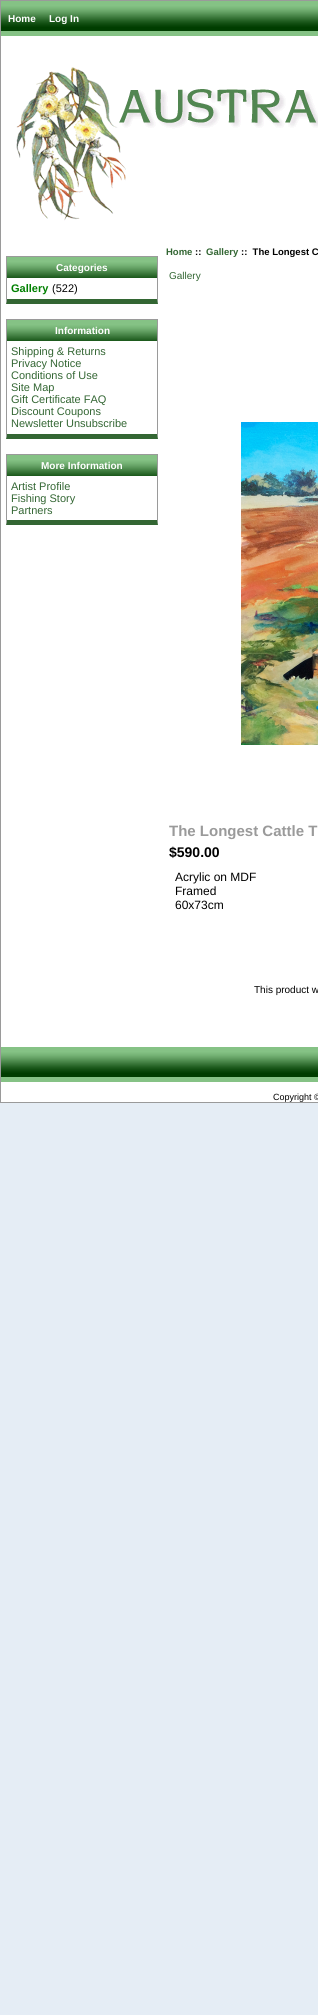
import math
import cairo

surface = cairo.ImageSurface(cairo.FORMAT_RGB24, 318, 2015)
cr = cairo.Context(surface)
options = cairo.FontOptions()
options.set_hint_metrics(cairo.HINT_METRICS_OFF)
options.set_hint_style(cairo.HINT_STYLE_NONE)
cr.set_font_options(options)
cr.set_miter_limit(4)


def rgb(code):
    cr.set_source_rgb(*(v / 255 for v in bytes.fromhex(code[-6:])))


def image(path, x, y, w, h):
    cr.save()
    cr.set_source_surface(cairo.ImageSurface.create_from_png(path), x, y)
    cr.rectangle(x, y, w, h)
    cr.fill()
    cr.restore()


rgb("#e5edf5")
cr.paint()
rgb("#ffffff")
cr.rectangle(1, 36, 317, 1066)
cr.fill()
cr.rectangle(0.5, 0.5, 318, 1102)
rgb("#9a9a9a")
cr.set_line_width(1)
cr.stroke()
image("img/1.png", 1, 1, 317, 35)
image("img/2.png", 16, 67, 302, 154)
cr.rectangle(6, 256, 152, 1)
cr.fill()
cr.new_path()
cr.move_to(158, 256)
cr.line_to(158, 304)
cr.line_to(157, 299)
cr.line_to(157, 257)
cr.close_path()
cr.fill()
rgb("#336633")
cr.new_path()
cr.move_to(158, 304)
cr.line_to(6, 304)
cr.line_to(7, 299)
cr.line_to(157, 299)
cr.close_path()
cr.fill()
rgb("#9a9a9a")
cr.new_path()
cr.move_to(6, 304)
cr.line_to(6, 256)
cr.line_to(7, 257)
cr.line_to(7, 299)
cr.close_path()
cr.fill()
image("img/3.png", 7, 257, 150, 21)
cr.rectangle(6, 319, 152, 1)
cr.fill()
cr.new_path()
cr.move_to(158, 319)
cr.line_to(158, 439)
cr.line_to(157, 434)
cr.line_to(157, 320)
cr.close_path()
cr.fill()
rgb("#336633")
cr.new_path()
cr.move_to(158, 439)
cr.line_to(6, 439)
cr.line_to(7, 434)
cr.line_to(157, 434)
cr.close_path()
cr.fill()
rgb("#9a9a9a")
cr.new_path()
cr.move_to(6, 439)
cr.line_to(6, 319)
cr.line_to(7, 320)
cr.line_to(7, 434)
cr.close_path()
cr.fill()
image("img/3.png", 7, 320, 150, 21)
cr.rectangle(6, 454, 152, 1)
cr.fill()
cr.new_path()
cr.move_to(158, 454)
cr.line_to(158, 525)
cr.line_to(157, 520)
cr.line_to(157, 455)
cr.close_path()
cr.fill()
rgb("#336633")
cr.new_path()
cr.move_to(158, 525)
cr.line_to(6, 525)
cr.line_to(7, 520)
cr.line_to(157, 520)
cr.close_path()
cr.fill()
rgb("#9a9a9a")
cr.new_path()
cr.move_to(6, 525)
cr.line_to(6, 454)
cr.line_to(7, 455)
cr.line_to(7, 520)
cr.close_path()
cr.fill()
image("img/3.png", 7, 455, 150, 21)
image("img/4.png", 241, 422, 77, 323)
image("img/1.png", 1, 1047, 317, 35)
cr.select_font_face("Liberation Sans", cairo.FONT_SLANT_NORMAL, cairo.FONT_WEIGHT_BOLD)
cr.set_font_size(10)
rgb("#ffffff")
for x, y, s in [
    (8, 22, "Home"),
    (49, 22, "Log In"),
    (56, 271, "Categories"),
]:
    cr.move_to(x, y)
    cr.show_text(s)
cr.set_font_size(11)
rgb("#008000")
cr.move_to(11, 292)
cr.show_text("Gallery")
cr.select_font_face("Liberation Sans")
rgb("#000000")
cr.move_to(52, 292)
cr.show_text("(522)")
cr.select_font_face("Liberation Sans", cairo.FONT_SLANT_NORMAL, cairo.FONT_WEIGHT_BOLD)
cr.set_font_size(10)
rgb("#ffffff")
cr.move_to(55, 334)
cr.show_text("Information")
cr.select_font_face("Liberation Sans")
cr.set_font_size(11)
rgb("#336633")
for x, y, s in [
    (11, 355, "Shipping & Returns"),
    (11, 367, "Privacy Notice"),
    (11, 379, "Conditions of Use"),
    (11, 391, "Site Map"),
    (11, 403, "Gift Certificate FAQ"),
    (11, 415, "Discount Coupons"),
    (11, 427, "Newsletter Unsubscribe"),
]:
    cr.move_to(x, y)
    cr.show_text(s)
cr.select_font_face("Liberation Sans", cairo.FONT_SLANT_NORMAL, cairo.FONT_WEIGHT_BOLD)
cr.set_font_size(10)
rgb("#ffffff")
cr.move_to(41, 469)
cr.show_text("More Information")
cr.select_font_face("Liberation Sans")
cr.set_font_size(11)
rgb("#336633")
for x, y, s in [
    (11, 490, "Artist Profile"),
    (11, 502, "Fishing Story"),
    (11, 514, "Partners"),
]:
    cr.move_to(x, y)
    cr.show_text(s)
cr.select_font_face("Liberation Sans", cairo.FONT_SLANT_NORMAL, cairo.FONT_WEIGHT_BOLD)
cr.set_font_size(9.5)
cr.move_to(166, 255)
cr.show_text("Home")
rgb("#000000")
cr.move_to(195, 255)
cr.show_text("::")
rgb("#336633")
cr.move_to(206, 255)
cr.show_text("Gallery")
rgb("#000000")
cr.move_to(241, 255)
cr.show_text("::  The Longest C")
cr.select_font_face("Liberation Sans")
cr.set_font_size(10)
rgb("#336633")
cr.move_to(169, 279)
cr.show_text("Gallery")
cr.select_font_face("Liberation Sans", cairo.FONT_SLANT_NORMAL, cairo.FONT_WEIGHT_BOLD)
cr.set_font_size(15)
rgb("#9a9a9a")
cr.move_to(169, 836)
cr.show_text("The Longest Cattle T")
cr.set_font_size(14)
rgb("#000000")
cr.move_to(169, 857)
cr.show_text("$590.00")
cr.select_font_face("Liberation Sans")
cr.set_font_size(12)
for x, y, s in [
    (175, 881, "Acrylic on MDF"),
    (175, 895, "Framed"),
    (175, 909, "60x73cm"),
]:
    cr.move_to(x, y)
    cr.show_text(s)
cr.set_font_size(10)
cr.move_to(254, 993)
cr.show_text("This product w")
cr.set_font_size(9)
cr.move_to(273, 1100)
cr.show_text("Copyright ©")
surface.write_to_png("page.png")
